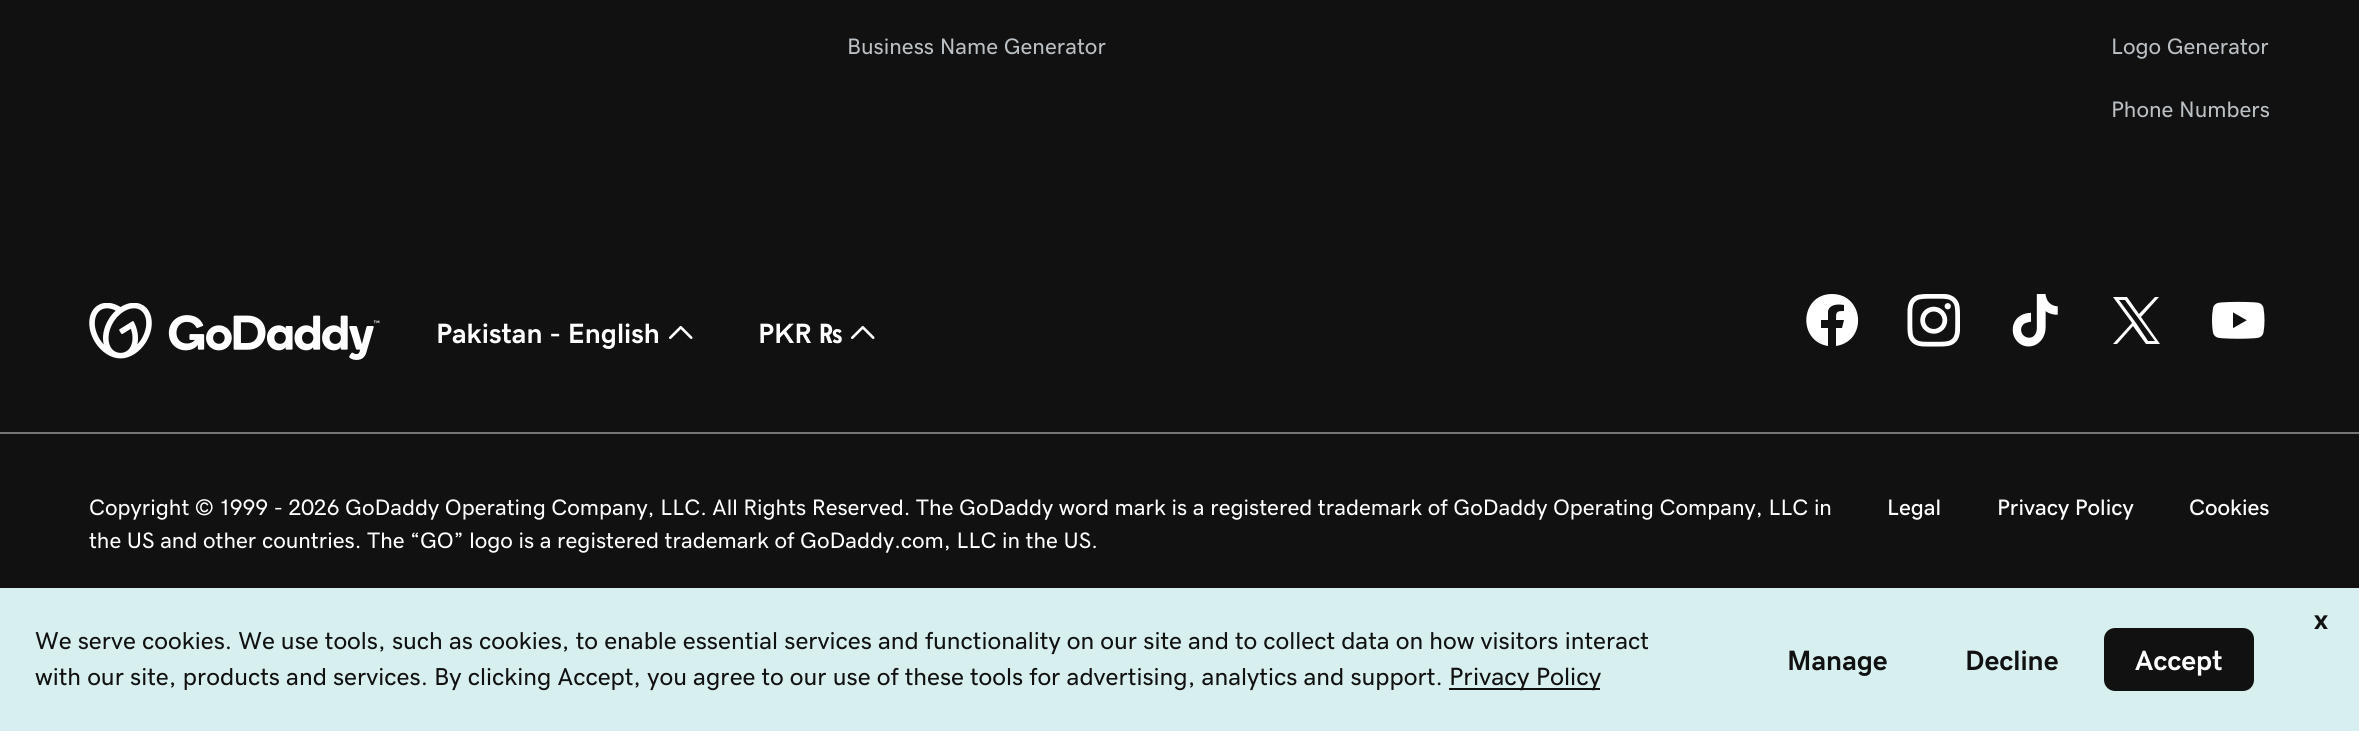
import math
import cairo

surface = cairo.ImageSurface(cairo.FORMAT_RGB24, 2359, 731)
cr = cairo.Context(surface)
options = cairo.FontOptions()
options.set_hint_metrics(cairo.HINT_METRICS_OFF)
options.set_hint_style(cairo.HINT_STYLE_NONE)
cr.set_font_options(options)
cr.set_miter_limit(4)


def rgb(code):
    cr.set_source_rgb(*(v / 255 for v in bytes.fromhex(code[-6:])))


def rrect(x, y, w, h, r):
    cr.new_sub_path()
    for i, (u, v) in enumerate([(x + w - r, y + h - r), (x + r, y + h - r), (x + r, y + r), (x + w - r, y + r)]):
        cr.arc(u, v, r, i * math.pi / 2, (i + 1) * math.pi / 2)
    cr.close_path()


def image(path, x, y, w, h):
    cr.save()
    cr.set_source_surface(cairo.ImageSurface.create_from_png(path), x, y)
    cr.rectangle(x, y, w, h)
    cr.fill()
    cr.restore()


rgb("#111111")
cr.paint()
image("img/1.png", 89, 303, 291, 57)
image("img/2.png", 669, 326, 24, 13)
image("img/2.png", 851, 326, 24, 13)
rgb("#ffffff")
cr.set_fill_rule(cairo.FILL_RULE_EVEN_ODD)
cr.new_path()
cr.move_to(1832, 294)
cr.curve_to(1800, 294, 1797, 341, 1828, 346)
cr.line_to(1828, 328)
cr.line_to(1821, 328)
cr.line_to(1821, 320)
cr.line_to(1828, 320)
cr.line_to(1828, 311)
cr.curve_to(1830, 304, 1838, 304, 1844, 305)
cr.line_to(1844, 311)
cr.curve_to(1836, 311, 1836, 312, 1836, 320)
cr.line_to(1844, 320)
cr.line_to(1842, 328)
cr.line_to(1836, 328)
cr.line_to(1836, 346)
cr.curve_to(1868, 341, 1864, 294, 1832, 294)
cr.close_path()
cr.fill()
image("img/3.png", 1907, 294, 53, 53)
image("img/4.png", 2012, 294, 46, 53)
cr.set_fill_rule(cairo.FILL_RULE_WINDING)
cr.new_path()
cr.move_to(2141, 317)
cr.line_to(2159, 297)
cr.line_to(2155, 297)
cr.line_to(2139, 314)
cr.line_to(2127, 297)
cr.line_to(2113, 297)
cr.line_to(2132, 323)
cr.line_to(2113, 344)
cr.line_to(2117, 344)
cr.line_to(2133, 326)
cr.line_to(2146, 344)
cr.line_to(2160, 344)
cr.close_path()
cr.move_to(2136, 323)
cr.line_to(2119, 300)
cr.line_to(2125, 300)
cr.line_to(2155, 341)
cr.line_to(2148, 341)
cr.close_path()
cr.fill()
image("img/5.png", 2212, 301, 53, 38)
for x, y, w, h, color in [
    (0, 432, 2359, 2, "#767676"),
    (0, 588, 2359, 143, "#d8efef"),
    (1449, 688, 151, 2, "#111111"),
]:
    rgb(color)
    cr.rectangle(x, y, w, h)
    cr.fill()
rrect(2104, 628, 150, 63, 11)
cr.fill()
cr.select_font_face("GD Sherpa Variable")
cr.set_font_size(22.4)
rgb("#bac0c3")
for x, y, s in [
    (847, 54, "Business Name Generator"),
    (2111, 54, "Logo Generator"),
    (2111, 117, "Phone Numbers"),
]:
    cr.move_to(x, y)
    cr.show_text(s)
cr.select_font_face("GD Sherpa Variable", cairo.FONT_SLANT_NORMAL, cairo.FONT_WEIGHT_BOLD)
cr.set_font_size(28)
rgb("#ffffff")
cr.move_to(436, 343)
cr.show_text("Pakistan - English")
cr.move_to(758, 343)
cr.show_text("PKR ₨")
cr.select_font_face("GD Sherpa Variable")
cr.set_font_size(22.4)
cr.move_to(89, 515)
cr.show_text("Copyright © 1999 - 2026 GoDaddy Operating Company, LLC. All Rights Reserved. The GoDaddy word mark is a registered trademark of GoDaddy Operating Company, LLC in")
cr.move_to(89, 548)
cr.show_text("the US and other countries. The “GO” logo is a registered trademark of GoDaddy.com, LLC in the US.")
cr.select_font_face("GD Sherpa Variable Medium")
for x, y, s in [
    (1887, 515, "Legal"),
    (1997, 515, "Privacy Policy"),
    (2189, 515, "Cookies"),
]:
    cr.move_to(x, y)
    cr.show_text(s)
cr.select_font_face("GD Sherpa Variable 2", cairo.FONT_SLANT_NORMAL, cairo.FONT_WEIGHT_BOLD)
cr.set_font_size(28)
rgb("#111111")
cr.move_to(2314, 629)
cr.show_text("x")
cr.select_font_face("GD Sherpa Variable")
cr.set_font_size(24.5)
cr.move_to(35, 649)
cr.show_text("We serve cookies. We use tools, such as cookies, to enable essential services and functionality on our site and to collect data on how visitors interact")
cr.move_to(35, 685)
cr.show_text("with our site, products and services. By clicking Accept, you agree to our use of these tools for advertising, analytics and support.")
cr.set_font_size(25)
cr.move_to(1449, 685)
cr.show_text("Privacy Policy")
cr.select_font_face("GD Sherpa Variable 2", cairo.FONT_SLANT_NORMAL, cairo.FONT_WEIGHT_BOLD)
cr.set_font_size(28)
cr.move_to(1787, 670)
cr.show_text("Manage")
cr.move_to(1965, 670)
cr.show_text("Decline")
rgb("#ffffff")
cr.move_to(2135, 670)
cr.show_text("Accept")
surface.write_to_png("page.png")
